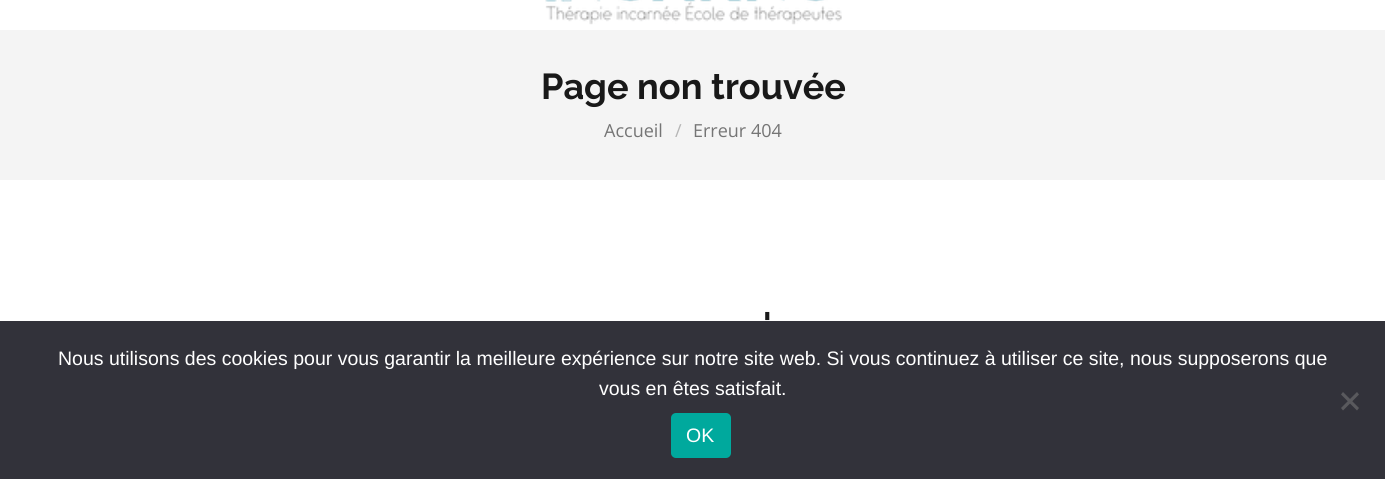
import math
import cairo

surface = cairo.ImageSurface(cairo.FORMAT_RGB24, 1385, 479)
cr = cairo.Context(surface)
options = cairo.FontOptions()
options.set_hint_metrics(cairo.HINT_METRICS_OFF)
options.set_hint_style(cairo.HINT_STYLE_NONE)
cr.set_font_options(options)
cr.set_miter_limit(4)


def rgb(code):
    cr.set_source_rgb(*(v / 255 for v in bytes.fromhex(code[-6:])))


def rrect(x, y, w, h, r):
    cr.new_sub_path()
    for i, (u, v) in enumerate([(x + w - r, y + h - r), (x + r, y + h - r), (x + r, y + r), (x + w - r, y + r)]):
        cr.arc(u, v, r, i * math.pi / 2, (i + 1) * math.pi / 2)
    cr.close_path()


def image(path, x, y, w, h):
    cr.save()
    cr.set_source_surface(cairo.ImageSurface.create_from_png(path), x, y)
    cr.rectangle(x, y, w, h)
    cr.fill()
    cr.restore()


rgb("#ffffff")
cr.paint()
image("img/1.png", 545, 0, 297, 25)
rgb("#f4f4f4")
cr.rectangle(0, 30, 1385, 150)
cr.fill()
rgb("#32323a")
cr.rectangle(0, 321, 1385, 158)
cr.fill()
rgb("#59595d")
cr.new_path()
cr.move_to(1357, 392)
cr.line_to(1359, 394.5)
cr.line_to(1343, 410.5)
cr.line_to(1341, 408)
cr.close_path()
cr.fill()
cr.new_path()
cr.move_to(1341, 394.5)
cr.line_to(1343, 392)
cr.line_to(1359, 408)
cr.line_to(1357, 410.5)
cr.close_path()
cr.fill()
rgb("#00a99d")
rrect(671, 413, 60, 45, 5)
cr.fill()
cr.select_font_face("Raleway", cairo.FONT_SLANT_NORMAL, cairo.FONT_WEIGHT_BOLD)
cr.set_font_size(36)
rgb("#191919")
cr.move_to(541, 99)
cr.show_text("Page non trouvée")
cr.select_font_face("Open Sans")
cr.set_font_size(18)
rgb("#757575")
cr.move_to(604, 137)
cr.show_text("Accueil")
rgb("#b5b5b5")
cr.move_to(675, 137)
cr.show_text("/")
rgb("#757575")
cr.move_to(693, 137)
cr.show_text("Erreur 404")
cr.select_font_face("Raleway", cairo.FONT_SLANT_NORMAL, cairo.FONT_WEIGHT_BOLD)
cr.set_font_size(36)
rgb("#191919")
cr.move_to(763, 338)
cr.show_text("'")
cr.select_font_face("Liberation Sans")
cr.set_font_size(19.5)
rgb("#ffffff")
for x, y, s in [
    (58, 365, "Nous utilisons des cookies pour vous garantir la meilleure expérience sur notre site web. Si vous continuez à utiliser ce site, nous supposerons que"),
    (599, 395, "vous en êtes satisfait."),
    (686, 442, "OK"),
]:
    cr.move_to(x, y)
    cr.show_text(s)
surface.write_to_png("page.png")
